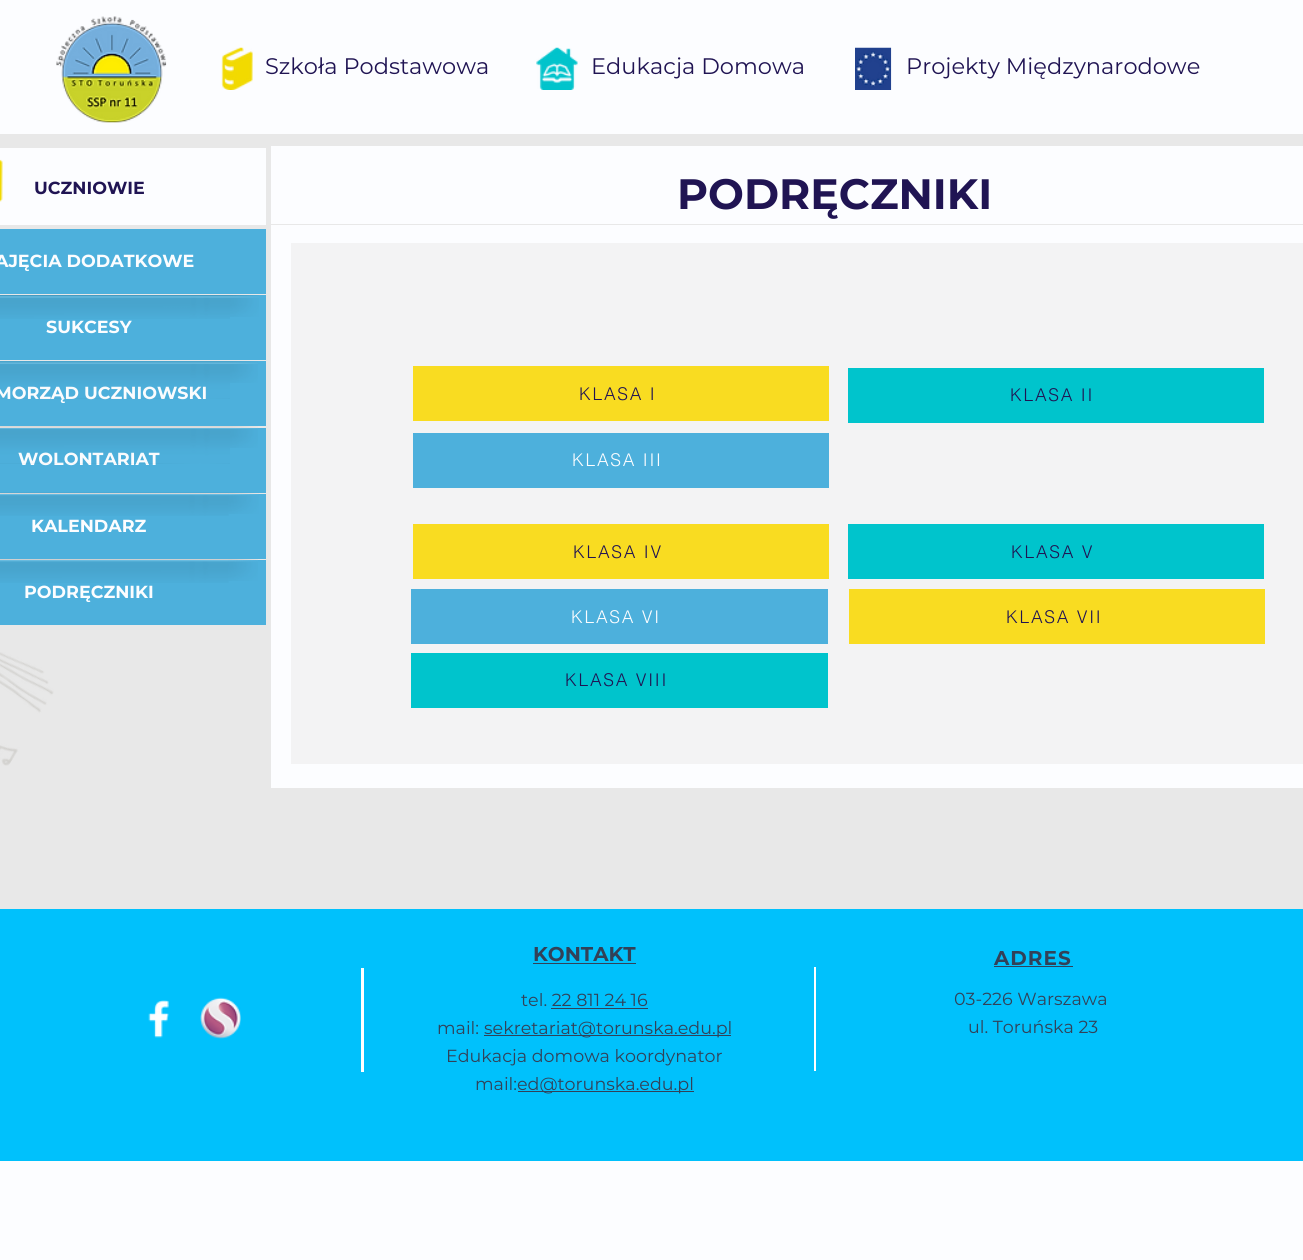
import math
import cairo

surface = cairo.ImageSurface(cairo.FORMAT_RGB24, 1303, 1260)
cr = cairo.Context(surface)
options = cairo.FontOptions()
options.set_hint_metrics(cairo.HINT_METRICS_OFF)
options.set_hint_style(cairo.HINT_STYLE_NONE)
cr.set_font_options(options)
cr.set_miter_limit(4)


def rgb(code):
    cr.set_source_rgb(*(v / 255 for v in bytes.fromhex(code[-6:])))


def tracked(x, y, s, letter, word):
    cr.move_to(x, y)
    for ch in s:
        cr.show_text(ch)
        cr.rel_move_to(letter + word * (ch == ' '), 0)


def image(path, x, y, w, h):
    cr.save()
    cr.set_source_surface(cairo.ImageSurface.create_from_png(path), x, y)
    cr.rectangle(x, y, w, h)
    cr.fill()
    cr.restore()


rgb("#fcfdff")
cr.paint()
image("img/1.png", 56, 16, 111, 107)
image("img/2.png", 221, 47, 32, 43)
image("img/3.png", 536, 47, 42, 43)
image("img/4.png", 855, 47, 37, 43)
rgb("#e8e8e8")
cr.rectangle(0, 134, 1303, 775)
cr.fill()
rgb("#fcfdff")
cr.rectangle(0, 148, 266, 77)
cr.fill()
image("img/5.png", 0, 159, 3, 43)
rgb("#4db0dc")
cr.rectangle(0, 229, 266, 65)
cr.fill()
cr.rectangle(0, 295, 266, 65)
cr.fill()
image("img/6.png", 0, 295, 230, 24)
image("img/7.png", 230, 295, 29, 22)
cr.rectangle(0, 361, 266, 65)
cr.fill()
image("img/9.png", 230, 361, 28, 22)
cr.rectangle(0, 428, 266, 65)
cr.fill()
image("img/11.png", 230, 426, 28, 22)
cr.rectangle(0, 494, 266, 65)
cr.fill()
image("img/12.png", 0, 492, 229, 24)
image("img/13.png", 228, 492, 31, 22)
cr.rectangle(0, 560, 266, 65)
cr.fill()
image("img/14.png", 0, 559, 229, 24)
image("img/15.png", 228, 559, 30, 22)
for x, y, w, h, color in [
    (271, 146, 1032, 78, "#fcfdff"),
    (271, 225, 1032, 563, "#fcfdff"),
    (291, 243, 1012, 521, "#f3f3f4"),
    (413, 366, 416, 55, "#f9dc21"),
    (848, 368, 416, 55, "#00c4cc"),
    (413, 433, 416, 55, "#4db0dc"),
    (413, 524, 416, 55, "#f9dc21"),
    (848, 524, 416, 55, "#00c4cc"),
    (411, 589, 417, 55, "#4db0dc"),
    (849, 589, 416, 55, "#f9dc21"),
    (411, 653, 417, 55, "#00c4cc"),
]:
    rgb(color)
    cr.rectangle(x, y, w, h)
    cr.fill()
image("img/16.png", 0, 652, 54, 114)
rgb("#00c1fc")
cr.rectangle(0, 909, 1303, 252)
cr.fill()
image("img/17.png", 148, 1000, 21, 38)
image("img/18.png", 200, 997, 41, 42)
for x, y, w, h, color in [
    (361, 968, 3, 104, "#ffffff"),
    (533, 963, 103, 1, "#324158"),
    (551, 1008, 97, 1, "#324158"),
    (484, 1035, 247, 1, "#324158"),
    (518, 1091, 176, 1, "#324158"),
    (814, 967, 2, 104, "#ffffff"),
    (994, 966, 79, 1, "#324158"),
]:
    rgb(color)
    cr.rectangle(x, y, w, h)
    cr.fill()
cr.select_font_face("Montserrat")
cr.set_font_size(22.5)
rgb("#201453")
for x, y, s in [
    (265, 74, "Szkoła Podstawowa"),
    (591, 74, "Edukacja Domowa"),
    (906, 74, "Projekty Międzynarodowe"),
]:
    cr.move_to(x, y)
    cr.show_text(s)
cr.select_font_face("Montserrat", cairo.FONT_SLANT_NORMAL, cairo.FONT_WEIGHT_BOLD)
cr.set_font_size(17.5)
cr.move_to(34, 194)
cr.show_text("UCZNIOWIE")
rgb("#fcfdff")
for x, y, s in [
    (-5, 267, "AJĘCIA DODATKOWE"),
    (46, 333, "SUKCESY"),
    (-5, 399, "MORZĄD UCZNIOWSKI"),
]:
    cr.move_to(x, y)
    cr.show_text(s)
image("img/8.png", 0, 361, 230, 38)
cr.move_to(18, 465)
cr.show_text("WOLONTARIAT")
image("img/10.png", 0, 426, 230, 38)
cr.move_to(31, 532)
cr.show_text("KALENDARZ")
cr.move_to(24, 598)
cr.show_text("PODRĘCZNIKI")
cr.set_font_size(42.5)
rgb("#201453")
cr.move_to(677, 209)
cr.show_text("PODRĘCZNIKI")
cr.select_font_face("helvetica Light")
cr.set_font_size(17.5)
tracked(579, 400, "KLASA I", 1.75, 0)
tracked(1010, 401, "KLASA II", 1.75, 0)
rgb("#fcfdff")
tracked(572, 466, "KLASA III", 1.75, 0)
rgb("#201453")
tracked(573, 558, "KLASA IV", 1.75, 0)
tracked(1011, 558, "KLASA V", 1.75, 0)
rgb("#fcfdff")
tracked(571, 623, "KLASA VI", 1.75, 0)
rgb("#201453")
tracked(1006, 623, "KLASA VII", 1.75, 0)
tracked(565, 686, "KLASA VIII", 1.75, 0)
cr.select_font_face("Montserrat", cairo.FONT_SLANT_NORMAL, cairo.FONT_WEIGHT_BOLD)
cr.set_font_size(20)
rgb("#324158")
cr.move_to(533, 961)
cr.show_text("KONTAKT")
cr.select_font_face("Montserrat")
cr.set_font_size(17.5)
for x, y, s in [
    (521, 1006, "tel. 22 811 24 16"),
    (437, 1034, "mail:"),
    (484, 1034, "sekretariat@torunska.edu.pl"),
    (446, 1062, "Edukacja domowa koordynator"),
    (475, 1090, "mail:"),
    (517, 1090, "ed@torunska.edu.pl"),
]:
    cr.move_to(x, y)
    cr.show_text(s)
cr.select_font_face("Montserrat", cairo.FONT_SLANT_NORMAL, cairo.FONT_WEIGHT_BOLD)
cr.set_font_size(20)
tracked(994, 965, "ADRES", 1, 0)
cr.select_font_face("Montserrat")
cr.set_font_size(17.5)
cr.move_to(954, 1005)
cr.show_text("03-226 Warszawa")
cr.move_to(968, 1033)
cr.show_text("ul. Toruńska 23")
surface.write_to_png("page.png")
